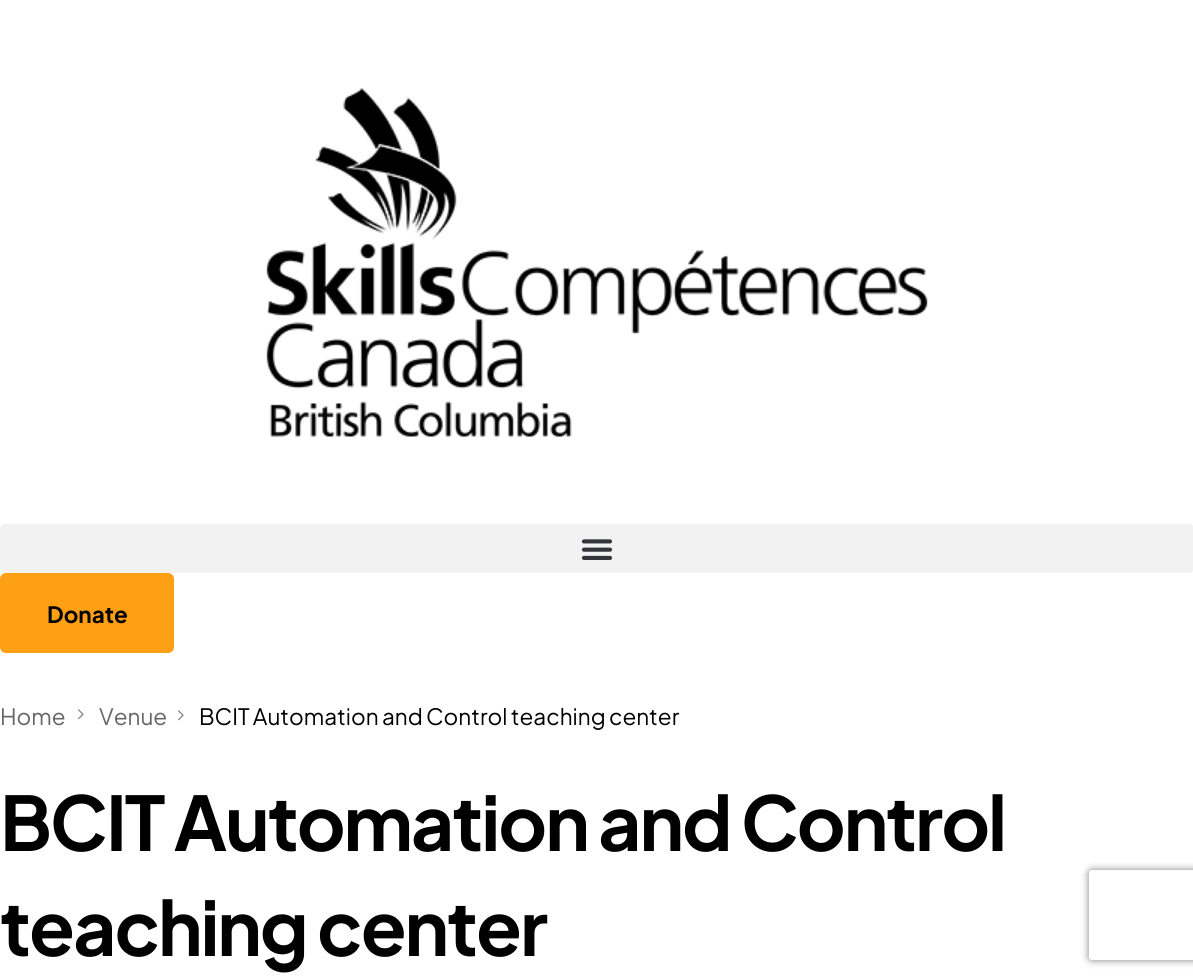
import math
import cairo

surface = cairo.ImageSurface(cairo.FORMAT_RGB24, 1193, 980)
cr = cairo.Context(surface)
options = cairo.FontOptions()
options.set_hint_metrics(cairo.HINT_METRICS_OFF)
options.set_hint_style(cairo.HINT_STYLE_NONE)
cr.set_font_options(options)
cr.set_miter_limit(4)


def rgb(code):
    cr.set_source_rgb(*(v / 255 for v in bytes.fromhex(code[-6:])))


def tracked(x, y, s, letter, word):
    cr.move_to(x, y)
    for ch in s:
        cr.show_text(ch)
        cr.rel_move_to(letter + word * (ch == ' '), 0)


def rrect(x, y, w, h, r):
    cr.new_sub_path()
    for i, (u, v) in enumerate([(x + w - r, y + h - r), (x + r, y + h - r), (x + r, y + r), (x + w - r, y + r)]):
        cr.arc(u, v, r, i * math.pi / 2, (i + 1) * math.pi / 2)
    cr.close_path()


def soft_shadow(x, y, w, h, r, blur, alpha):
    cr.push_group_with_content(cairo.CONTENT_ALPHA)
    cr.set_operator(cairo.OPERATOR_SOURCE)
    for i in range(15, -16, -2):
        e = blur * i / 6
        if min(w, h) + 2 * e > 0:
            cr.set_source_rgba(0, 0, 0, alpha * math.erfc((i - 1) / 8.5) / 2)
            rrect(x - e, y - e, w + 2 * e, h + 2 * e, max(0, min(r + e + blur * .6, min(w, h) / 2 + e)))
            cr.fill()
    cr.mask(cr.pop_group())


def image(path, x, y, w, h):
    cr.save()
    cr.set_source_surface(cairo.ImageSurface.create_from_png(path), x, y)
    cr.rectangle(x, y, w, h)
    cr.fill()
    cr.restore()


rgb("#ffffff")
cr.paint()
image("img/1.png", 266, 88, 662, 349)
rgb("#f2f2f2")
rrect(0, 524, 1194, 49, 5)
cr.fill()
image("img/2.png", 581, 539, 32, 21)
rgb("#fea014")
rrect(0, 573, 174, 80, 6)
cr.fill()
image("img/3.png", 78, 709, 6, 11)
image("img/4.png", 178, 710, 6, 11)
cr.save()
cr.set_fill_rule(cairo.FILL_RULE_EVEN_ODD)
cr.new_path()
cr.move_to(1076, 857)
cr.line_to(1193, 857)
cr.line_to(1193, 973)
cr.line_to(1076, 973)
cr.close_path()
cr.move_to(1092, 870)
cr.line_to(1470, 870)
cr.curve_to(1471.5, 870, 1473, 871.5, 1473, 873)
cr.line_to(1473, 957)
cr.curve_to(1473, 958.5, 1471.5, 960, 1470, 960)
cr.line_to(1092, 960)
cr.curve_to(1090.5, 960, 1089, 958.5, 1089, 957)
cr.line_to(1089, 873)
cr.curve_to(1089, 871.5, 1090.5, 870, 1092, 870)
cr.close_path()
cr.clip()
rgb("#808080")
soft_shadow(1089, 870, 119, 90, 3, 4, 1)
cr.restore()
cr.select_font_face("Plus Jakarta Sans", cairo.FONT_SLANT_NORMAL, cairo.FONT_WEIGHT_BOLD)
cr.set_font_size(22.5)
rgb("#000000")
cr.move_to(47, 623)
cr.show_text("Donate")
cr.select_font_face("Plus Jakarta Sans")
rgb("#666666")
cr.move_to(0, 725)
cr.show_text("Home")
cr.move_to(99, 725)
cr.show_text("Venue")
rgb("#000000")
tracked(199, 725, "BCIT Automation and Control teaching center", 0, -0.5)
cr.select_font_face("Plus Jakarta Sans", cairo.FONT_SLANT_NORMAL, cairo.FONT_WEIGHT_BOLD)
cr.set_font_size(75)
tracked(0, 851, "BCIT Automation and Control", -2, -1)
tracked(0, 956, "teaching center", -2, -1)
surface.write_to_png("page.png")
